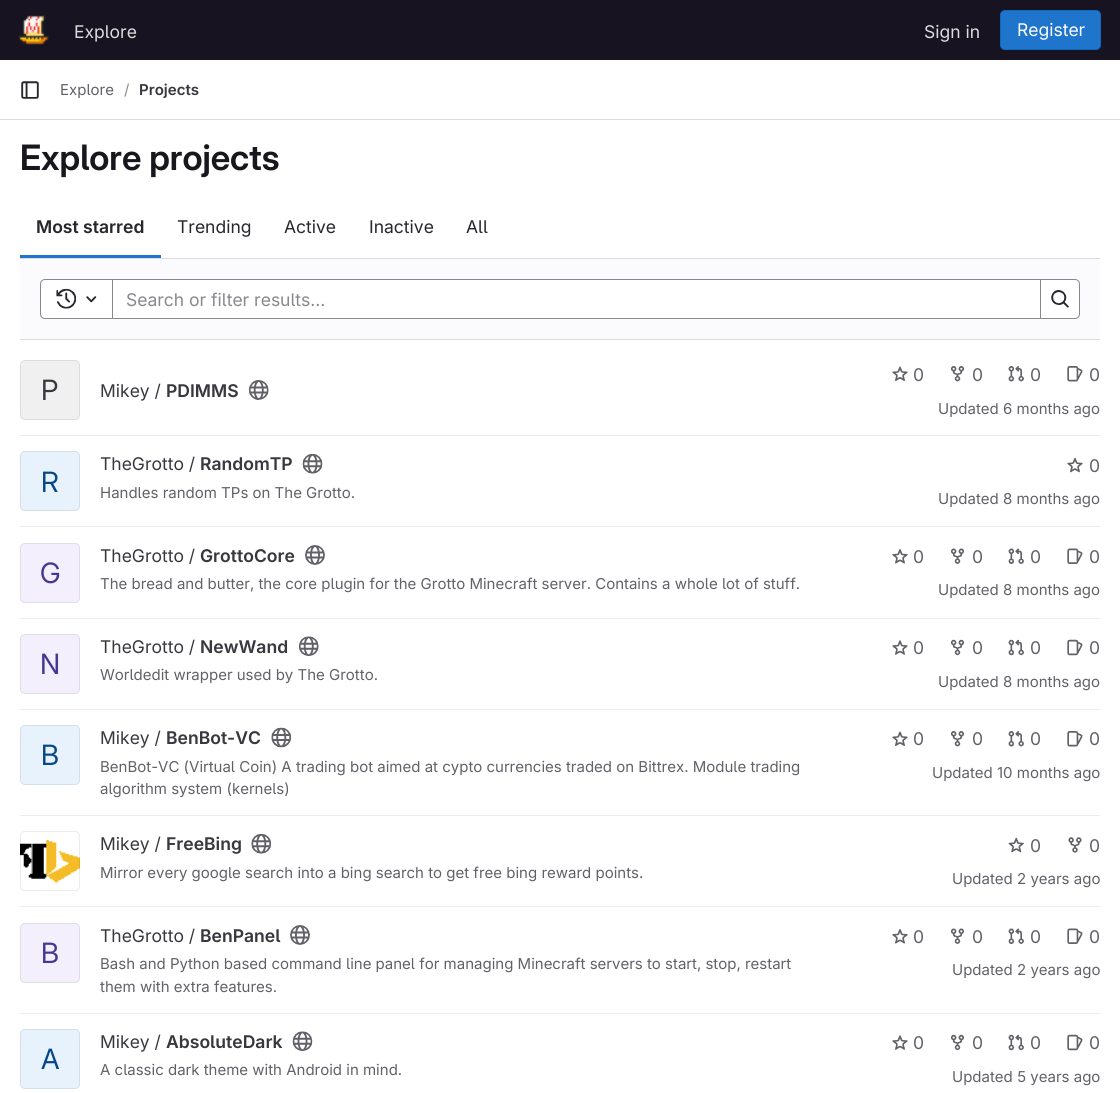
import math
import cairo

surface = cairo.ImageSurface(cairo.FORMAT_RGB24, 1120, 1093)
cr = cairo.Context(surface)
options = cairo.FontOptions()
options.set_hint_metrics(cairo.HINT_METRICS_OFF)
options.set_hint_style(cairo.HINT_STYLE_NONE)
cr.set_font_options(options)
cr.set_miter_limit(4)


def rgb(code):
    cr.set_source_rgb(*(v / 255 for v in bytes.fromhex(code[-6:])))


def rrect(x, y, w, h, r):
    cr.new_sub_path()
    for i, (u, v) in enumerate([(x + w - r, y + h - r), (x + r, y + h - r), (x + r, y + r), (x + w - r, y + r)]):
        cr.arc(u, v, r, i * math.pi / 2, (i + 1) * math.pi / 2)
    cr.close_path()


def image(path, x, y, w, h):
    cr.save()
    cr.set_source_surface(cairo.ImageSurface.create_from_png(path), x, y)
    cr.rectangle(x, y, w, h)
    cr.fill()
    cr.restore()


rgb("#ffffff")
cr.paint()
rgb("#171321")
cr.rectangle(0, 0, 1120, 60)
cr.fill()
image("img/1.png", 18, 15, 31, 30)
rgb("#1f75cb")
rrect(1000.5, 10.5, 100, 39, 4.5)
cr.fill_preserve()
rgb("#1068bf")
cr.set_line_width(1)
cr.stroke()
rgb("#dcdcde")
cr.rectangle(0, 119, 1120, 1)
cr.fill()
image("img/2.png", 21, 81, 18, 18)
for x, y, w, h, color in [
    (20, 255, 141, 3, "#1f75cb"),
    (20, 259, 1080, 80, "#fbfafd"),
    (20, 258, 1080, 1, "#dcdcde"),
    (20, 339, 1080, 1, "#dcdcde"),
    (113, 280, 927, 38, "#ffffff"),
]:
    rgb(color)
    cr.rectangle(x, y, w, h)
    cr.fill()
cr.rectangle(111.5, 279.5, 929, 39)
rgb("#89888d")
cr.stroke()
rgb("#ffffff")
cr.new_path()
cr.move_to(45, 279.5)
cr.line_to(112.5, 279.5)
cr.line_to(112.5, 318.5)
cr.line_to(45, 318.5)
cr.curve_to(42.5, 318.5, 40.5, 316.5, 40.5, 314)
cr.line_to(40.5, 284)
cr.curve_to(40.5, 281.5, 42.5, 279.5, 45, 279.5)
cr.close_path()
cr.fill_preserve()
rgb("#89888d")
cr.stroke()
image("img/3.png", 56, 288, 21, 21)
image("img/4.png", 86, 296, 11, 7)
rgb("#ffffff")
cr.new_path()
cr.move_to(1040.5, 279.5)
cr.line_to(1075, 279.5)
cr.curve_to(1077.5, 279.5, 1079.5, 281.5, 1079.5, 284)
cr.line_to(1079.5, 314)
cr.curve_to(1079.5, 316.5, 1077.5, 318.5, 1075, 318.5)
cr.line_to(1040.5, 318.5)
cr.close_path()
cr.fill_preserve()
rgb("#89888d")
cr.stroke()
image("img/5.png", 1051, 290, 18, 18)
rgb("#ececef")
cr.rectangle(20, 435, 1080, 1)
cr.fill()
rgb("#f0f0f1")
rrect(20, 360, 60, 60, 5)
cr.fill()
rrect(20.5, 360.5, 59, 59, 4.5)
cr.set_source_rgba(0.02, 0.02, 0.024, 0.08)
cr.stroke()
image("img/6.png", 248, 380, 21, 20)
image("img/7.png", 892, 366, 16, 15)
image("img/8.png", 950, 366, 14, 16)
image("img/9.png", 1008, 366, 16, 16)
image("img/10.png", 1067, 366, 16, 16)
rgb("#ececef")
cr.rectangle(20, 526, 1080, 1)
cr.fill()
rgb("#e7f2fc")
rrect(20, 451, 60, 60, 5)
cr.fill()
rrect(20.5, 451.5, 59, 59, 4.5)
cr.set_source_rgba(0.02, 0.02, 0.024, 0.08)
cr.stroke()
image("img/11.png", 302, 453, 21, 21)
image("img/12.png", 1067, 457, 16, 16)
rgb("#ececef")
cr.rectangle(20, 618, 1080, 1)
cr.fill()
rgb("#f3effc")
rrect(20, 543, 60, 60, 5)
cr.fill()
rrect(20.5, 543.5, 59, 59, 4.5)
cr.set_source_rgba(0.02, 0.02, 0.024, 0.08)
cr.stroke()
image("img/13.png", 305, 545, 20, 20)
image("img/14.png", 892, 549, 16, 15)
image("img/15.png", 950, 548, 15, 16)
image("img/16.png", 1008, 548, 16, 16)
image("img/17.png", 1067, 548, 16, 16)
rgb("#ececef")
cr.rectangle(20, 709, 1080, 1)
cr.fill()
rgb("#f3effc")
rrect(20, 634, 60, 60, 5)
cr.fill()
rrect(20.5, 634.5, 59, 59, 4.5)
cr.set_source_rgba(0.02, 0.02, 0.024, 0.08)
cr.stroke()
image("img/18.png", 298, 636, 21, 21)
image("img/19.png", 892, 640, 16, 15)
image("img/20.png", 950, 639, 15, 17)
image("img/21.png", 1008, 639, 16, 17)
image("img/22.png", 1067, 639, 16, 17)
rgb("#ececef")
cr.rectangle(20, 815, 1080, 1)
cr.fill()
rgb("#e7f2fc")
rrect(20, 725, 60, 60, 5)
cr.fill()
rrect(20.5, 725.5, 59, 59, 4.5)
cr.set_source_rgba(0.02, 0.02, 0.024, 0.08)
cr.stroke()
image("img/23.png", 271, 727, 21, 21)
image("img/7.png", 892, 731, 16, 15)
image("img/8.png", 950, 731, 14, 16)
image("img/9.png", 1008, 731, 16, 16)
image("img/10.png", 1067, 731, 16, 16)
rgb("#ececef")
cr.rectangle(20, 906, 1080, 1)
cr.fill()
image("img/24.png", 20, 840, 60, 43)
rrect(20.5, 831.5, 59, 59, 4.5)
cr.set_source_rgba(0.02, 0.02, 0.024, 0.08)
cr.stroke()
image("img/25.png", 251, 833, 21, 21)
image("img/26.png", 1008, 837, 16, 16)
image("img/27.png", 1068, 837, 14, 16)
rgb("#ececef")
cr.rectangle(20, 1013, 1080, 1)
cr.fill()
rgb("#f3effc")
rrect(20, 923, 60, 60, 5)
cr.fill()
rrect(20.5, 923.5, 59, 59, 4.5)
cr.set_source_rgba(0.02, 0.02, 0.024, 0.08)
cr.stroke()
image("img/13.png", 290, 925, 20, 20)
image("img/14.png", 892, 929, 16, 15)
image("img/15.png", 950, 928, 15, 16)
image("img/16.png", 1008, 928, 16, 16)
image("img/17.png", 1067, 928, 16, 16)
rgb("#e7f2fc")
rrect(20, 1029, 60, 60, 5)
cr.fill()
rrect(20.5, 1029.5, 59, 59, 4.5)
cr.set_source_rgba(0.02, 0.02, 0.024, 0.08)
cr.stroke()
image("img/28.png", 292, 1031, 21, 21)
image("img/19.png", 892, 1035, 16, 15)
image("img/20.png", 950, 1034, 15, 17)
image("img/21.png", 1008, 1034, 16, 17)
image("img/22.png", 1067, 1034, 16, 17)
cr.select_font_face("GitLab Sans")
cr.set_font_size(17.5)
rgb("#dcdcde")
cr.move_to(74, 38)
cr.show_text("Explore")
cr.move_to(924, 38)
cr.show_text("Sign in")
rgb("#ffffff")
cr.move_to(1017, 36)
cr.show_text("Register")
cr.set_font_size(15)
rgb("#626168")
cr.move_to(60, 95)
cr.show_text("Explore")
rgb("#89888d")
cr.move_to(124, 95)
cr.show_text("/")
cr.select_font_face("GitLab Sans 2 SemiBold")
rgb("#3a383f")
cr.move_to(139, 95)
cr.show_text("Projects")
cr.select_font_face("GitLab Sans SemiBold")
cr.set_font_size(35)
rgb("#18171d")
cr.move_to(20, 170)
cr.show_text("Explore projects")
cr.select_font_face("GitLab Sans 2 SemiBold")
cr.set_font_size(17.5)
rgb("#28272d")
cr.move_to(36, 233)
cr.show_text("Most starred")
cr.select_font_face("GitLab Sans")
for x, y, s in [
    (177, 233, "Trending"),
    (284, 233, "Active"),
    (369, 233, "Inactive"),
    (466, 233, "All"),
]:
    cr.move_to(x, y)
    cr.show_text(s)
rgb("#89888d")
cr.move_to(126, 306)
cr.show_text("Search or filter results…")
cr.select_font_face("GitLab Sans 2")
cr.set_font_size(28)
rgb("#3a383f")
cr.move_to(41, 400)
cr.show_text("P")
cr.select_font_face("GitLab Sans")
cr.set_font_size(17.5)
cr.move_to(100, 397)
cr.show_text("Mikey /")
cr.select_font_face("GitLab Sans 2 SemiBold")
cr.move_to(166, 397)
cr.show_text("PDIMMS")
cr.select_font_face("GitLab Sans")
rgb("#626168")
for x, y, s in [
    (913, 381, "0"),
    (972, 381, "0"),
    (1030, 381, "0"),
    (1089, 381, "0"),
]:
    cr.move_to(x, y)
    cr.show_text(s)
cr.set_font_size(15)
cr.move_to(938, 414)
cr.show_text("Updated 6 months ago")
cr.select_font_face("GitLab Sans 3")
cr.set_font_size(28)
rgb("#064787")
cr.move_to(41, 492)
cr.show_text("R")
cr.select_font_face("GitLab Sans")
cr.set_font_size(17.5)
rgb("#3a383f")
cr.move_to(100, 470)
cr.show_text("TheGrotto /")
cr.select_font_face("GitLab Sans 2 SemiBold")
cr.move_to(200, 470)
cr.show_text("RandomTP")
cr.select_font_face("GitLab Sans")
cr.set_font_size(15)
rgb("#626168")
cr.move_to(100, 498)
cr.show_text("Handles random TPs on The Grotto.")
cr.set_font_size(17.5)
cr.move_to(1089, 472)
cr.show_text("0")
cr.set_font_size(15)
cr.move_to(938, 504)
cr.show_text("Updated 8 months ago")
cr.select_font_face("GitLab Sans 3")
cr.set_font_size(28)
rgb("#453894")
cr.move_to(40, 583)
cr.show_text("G")
cr.select_font_face("GitLab Sans")
cr.set_font_size(17.5)
rgb("#3a383f")
cr.move_to(100, 562)
cr.show_text("TheGrotto /")
cr.select_font_face("GitLab Sans 2 SemiBold")
cr.move_to(200, 562)
cr.show_text("GrottoCore")
cr.select_font_face("GitLab Sans")
cr.set_font_size(15)
rgb("#626168")
cr.move_to(100, 589)
cr.show_text("The bread and butter, the core plugin for the Grotto Minecraft server. Contains a whole lot of stuff.")
cr.set_font_size(17.5)
for x, y, s in [
    (913, 563, "0"),
    (972, 563, "0"),
    (1030, 563, "0"),
    (1089, 563, "0"),
]:
    cr.move_to(x, y)
    cr.show_text(s)
cr.set_font_size(15)
cr.move_to(938, 595)
cr.show_text("Updated 8 months ago")
cr.select_font_face("GitLab Sans 2")
cr.set_font_size(28)
rgb("#453894")
cr.move_to(40, 674)
cr.show_text("N")
cr.select_font_face("GitLab Sans")
cr.set_font_size(17.5)
rgb("#3a383f")
cr.move_to(100, 653)
cr.show_text("TheGrotto /")
cr.select_font_face("GitLab Sans 2 SemiBold")
cr.move_to(200, 653)
cr.show_text("NewWand")
cr.select_font_face("GitLab Sans")
cr.set_font_size(15)
rgb("#626168")
cr.move_to(100, 680)
cr.show_text("Worldedit wrapper used by The Grotto.")
cr.set_font_size(17.5)
for x, y, s in [
    (913, 654, "0"),
    (972, 654, "0"),
    (1030, 654, "0"),
    (1089, 654, "0"),
]:
    cr.move_to(x, y)
    cr.show_text(s)
cr.set_font_size(15)
cr.move_to(938, 687)
cr.show_text("Updated 8 months ago")
cr.select_font_face("GitLab Sans 3")
cr.set_font_size(28)
rgb("#064787")
cr.move_to(41, 765)
cr.show_text("B")
cr.select_font_face("GitLab Sans")
cr.set_font_size(17.5)
rgb("#3a383f")
cr.move_to(100, 744)
cr.show_text("Mikey /")
cr.select_font_face("GitLab Sans 2 SemiBold")
cr.move_to(166, 744)
cr.show_text("BenBot-VC")
cr.select_font_face("GitLab Sans")
cr.set_font_size(15)
rgb("#626168")
cr.move_to(100, 772)
cr.show_text("BenBot-VC (Virtual Coin) A trading bot aimed at cypto currencies traded on Bittrex. Module trading")
cr.move_to(100, 794)
cr.show_text("algorithm system (kernels)")
cr.set_font_size(17.5)
for x, y, s in [
    (913, 745, "0"),
    (972, 745, "0"),
    (1030, 745, "0"),
    (1089, 745, "0"),
]:
    cr.move_to(x, y)
    cr.show_text(s)
cr.set_font_size(15)
cr.move_to(932, 778)
cr.show_text("Updated 10 months ago")
cr.set_font_size(17.5)
rgb("#3a383f")
cr.move_to(100, 850)
cr.show_text("Mikey /")
cr.select_font_face("GitLab Sans 2 SemiBold")
cr.move_to(166, 850)
cr.show_text("FreeBing")
cr.select_font_face("GitLab Sans")
cr.set_font_size(15)
rgb("#626168")
cr.move_to(100, 878)
cr.show_text("Mirror every google search into a bing search to get free bing reward points.")
cr.set_font_size(17.5)
cr.move_to(1030, 852)
cr.show_text("0")
cr.move_to(1089, 852)
cr.show_text("0")
cr.set_font_size(15)
cr.move_to(952, 884)
cr.show_text("Updated 2 years ago")
cr.select_font_face("GitLab Sans 3")
cr.set_font_size(28)
rgb("#453894")
cr.move_to(41, 963)
cr.show_text("B")
cr.select_font_face("GitLab Sans")
cr.set_font_size(17.5)
rgb("#3a383f")
cr.move_to(100, 942)
cr.show_text("TheGrotto /")
cr.select_font_face("GitLab Sans 2 SemiBold")
cr.move_to(200, 942)
cr.show_text("BenPanel")
cr.select_font_face("GitLab Sans")
cr.set_font_size(15)
rgb("#626168")
cr.move_to(100, 969)
cr.show_text("Bash and Python based command line panel for managing Minecraft servers to start, stop, restart")
cr.move_to(100, 992)
cr.show_text("them with extra features.")
cr.set_font_size(17.5)
for x, y, s in [
    (913, 943, "0"),
    (972, 943, "0"),
    (1030, 943, "0"),
    (1089, 943, "0"),
]:
    cr.move_to(x, y)
    cr.show_text(s)
cr.set_font_size(15)
cr.move_to(952, 975)
cr.show_text("Updated 2 years ago")
cr.select_font_face("GitLab Sans 2")
cr.set_font_size(28)
rgb("#064787")
cr.move_to(41, 1069)
cr.show_text("A")
cr.select_font_face("GitLab Sans")
cr.set_font_size(17.5)
rgb("#3a383f")
cr.move_to(100, 1048)
cr.show_text("Mikey /")
cr.select_font_face("GitLab Sans 2 SemiBold")
cr.move_to(166, 1048)
cr.show_text("AbsoluteDark")
cr.select_font_face("GitLab Sans")
cr.set_font_size(15)
rgb("#626168")
cr.move_to(100, 1075)
cr.show_text("A classic dark theme with Android in mind.")
cr.set_font_size(17.5)
for x, y, s in [
    (913, 1049, "0"),
    (972, 1049, "0"),
    (1030, 1049, "0"),
    (1089, 1049, "0"),
]:
    cr.move_to(x, y)
    cr.show_text(s)
cr.set_font_size(15)
cr.move_to(952, 1082)
cr.show_text("Updated 5 years ago")
surface.write_to_png("page.png")
